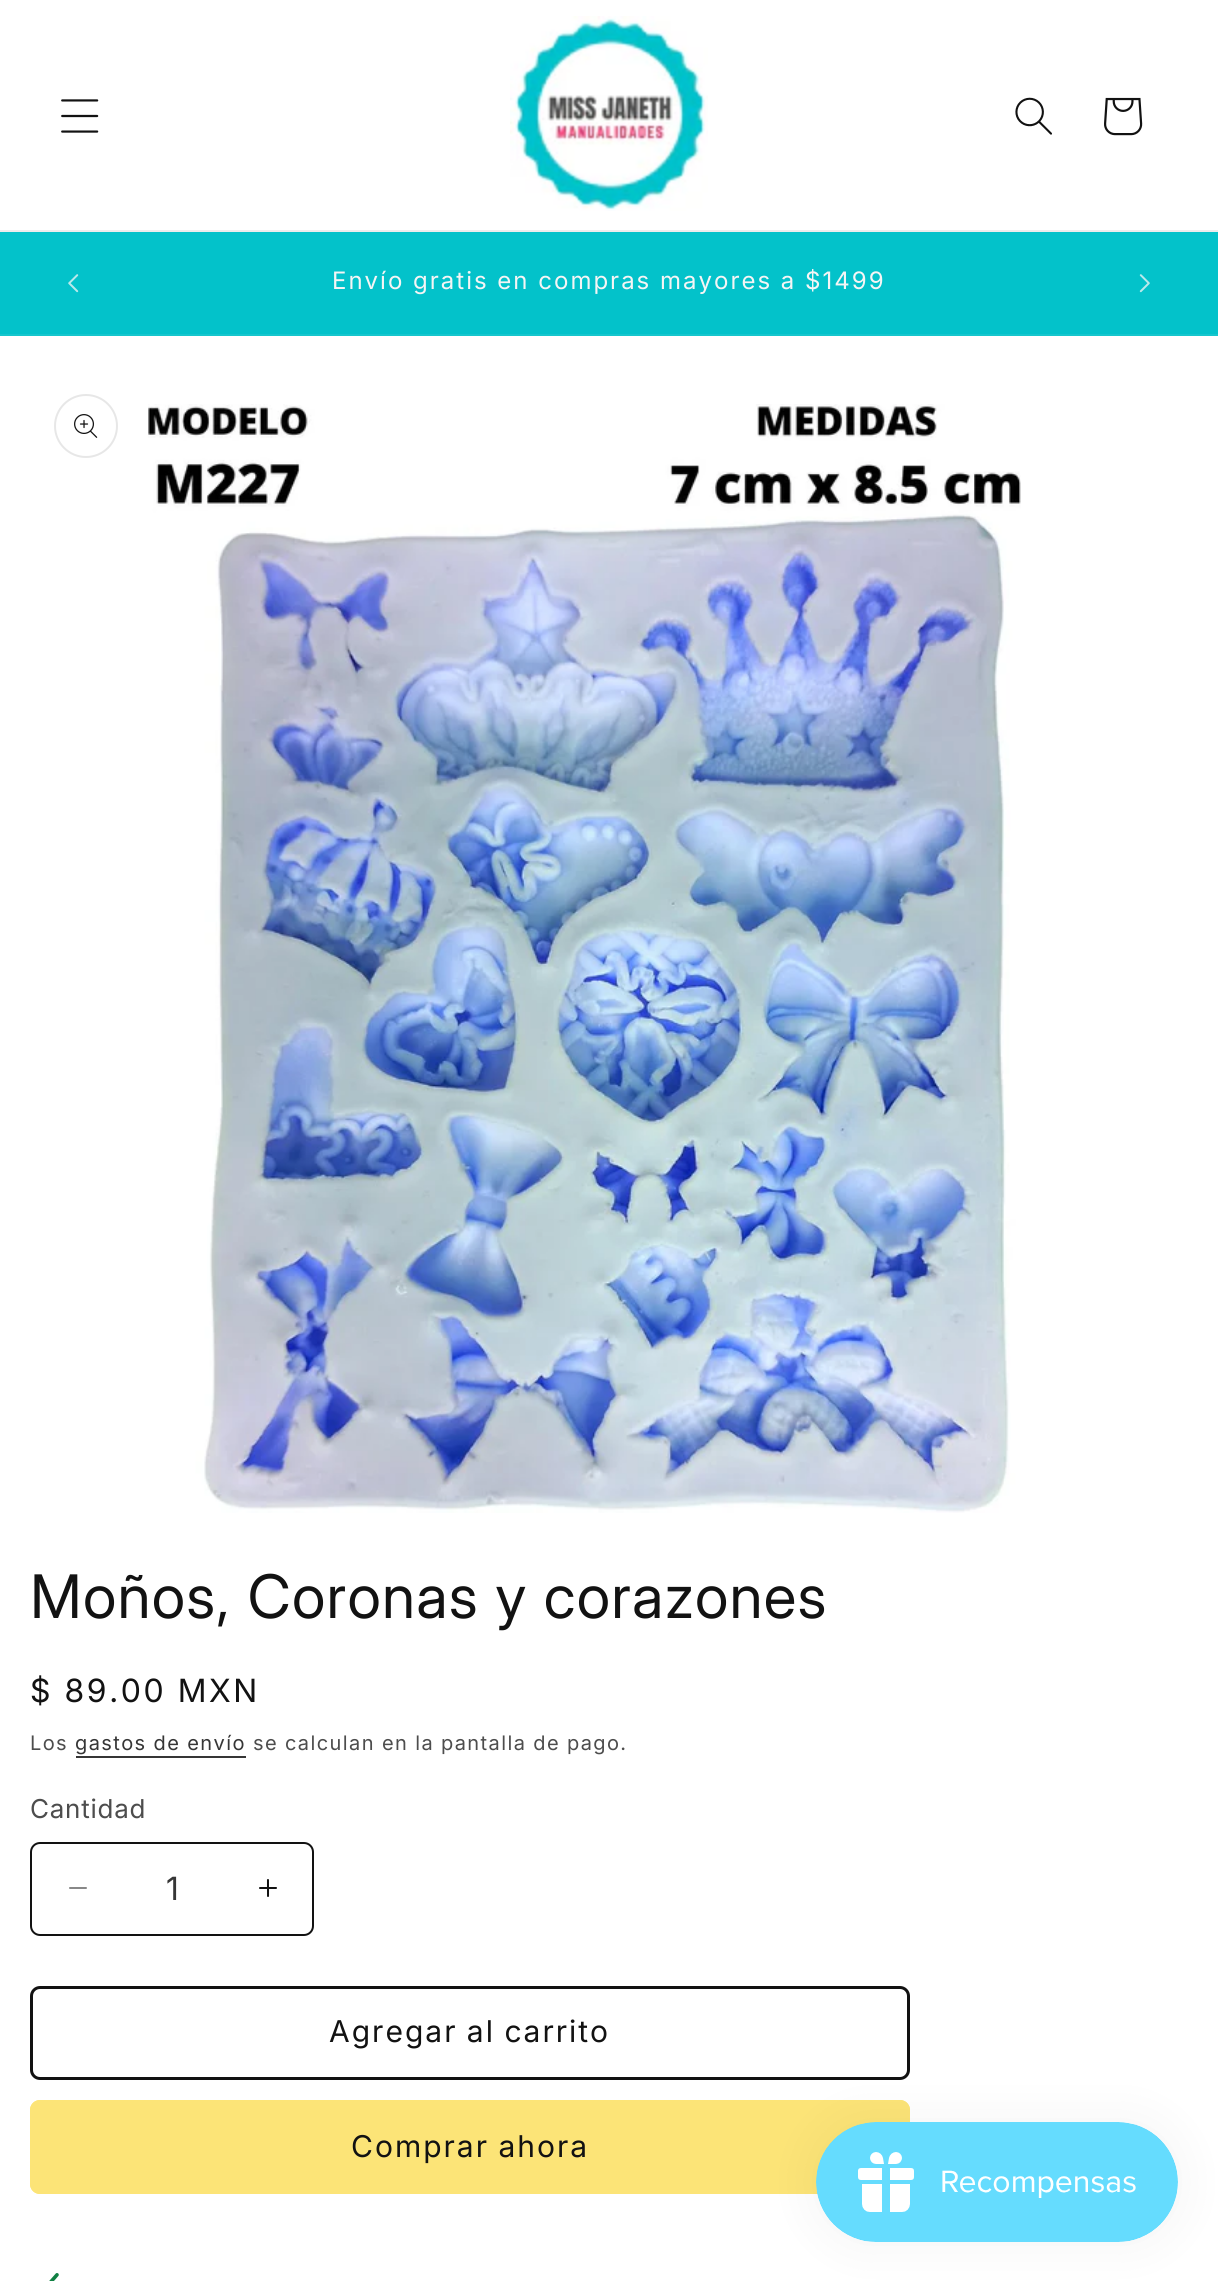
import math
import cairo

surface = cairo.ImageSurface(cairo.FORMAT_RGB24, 1218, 2281)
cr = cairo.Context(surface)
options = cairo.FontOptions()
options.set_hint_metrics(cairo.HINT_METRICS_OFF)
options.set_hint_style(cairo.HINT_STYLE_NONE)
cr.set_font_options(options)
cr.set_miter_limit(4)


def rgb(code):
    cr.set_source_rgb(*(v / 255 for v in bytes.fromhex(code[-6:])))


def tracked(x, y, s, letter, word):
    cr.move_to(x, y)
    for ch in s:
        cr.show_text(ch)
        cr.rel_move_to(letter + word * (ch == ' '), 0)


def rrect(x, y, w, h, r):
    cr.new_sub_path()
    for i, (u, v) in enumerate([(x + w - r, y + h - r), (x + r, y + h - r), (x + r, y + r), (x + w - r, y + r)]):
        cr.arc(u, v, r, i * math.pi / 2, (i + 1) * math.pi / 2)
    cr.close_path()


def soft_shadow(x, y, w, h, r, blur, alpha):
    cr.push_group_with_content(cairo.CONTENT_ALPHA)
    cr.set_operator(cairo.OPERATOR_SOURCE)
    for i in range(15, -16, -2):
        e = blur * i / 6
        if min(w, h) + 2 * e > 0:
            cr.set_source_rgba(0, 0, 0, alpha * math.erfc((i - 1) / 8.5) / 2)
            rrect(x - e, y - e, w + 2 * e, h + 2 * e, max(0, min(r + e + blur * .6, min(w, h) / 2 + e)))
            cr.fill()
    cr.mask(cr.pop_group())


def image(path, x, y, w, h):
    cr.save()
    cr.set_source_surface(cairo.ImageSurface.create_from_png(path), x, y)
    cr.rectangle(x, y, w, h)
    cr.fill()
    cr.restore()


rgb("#ffffff")
cr.paint()
rgb("#ececec")
cr.rectangle(0, 230, 1218, 2)
cr.fill()
image("img/1.png", 61, 99, 38, 34)
image("img/2.png", 510, 16, 198, 195)
image("img/3.png", 1015, 97, 37, 38)
image("img/4.png", 1104, 97, 39, 39)
rgb("#03c2ca")
cr.rectangle(0, 232, 1218, 102)
cr.fill()
rgb("#16c6cd")
cr.rectangle(0, 334, 1218, 2)
cr.fill()
image("img/5.png", 68, 274, 11, 19)
image("img/6.png", 1139, 274, 11, 19)
cr.arc(86, 426, 31, 0, 2 * math.pi)
rgb("#e7e7e7")
cr.stroke()
image("img/7.png", 74, 414, 24, 24)
image("img/8.png", 148, 404, 873, 1109)
rgb("#363636")
cr.rectangle(76, 1756, 170, 2)
cr.fill()
image("img/9.png", 69, 1887, 18, 2)
image("img/10.png", 259, 1879, 18, 18)
rrect(31, 1843, 282, 92, 9)
rgb("#121212")
cr.stroke()
rrect(31.5, 1987.5, 877, 91, 8.5)
cr.set_line_width(3)
cr.stroke()
rgb("#fce477")
rrect(30, 2100, 880, 94, 10)
cr.fill()
rrect(31, 2101, 878, 92, 9)
cr.set_line_width(2)
cr.stroke()
image("img/11.png", 49, 2273, 10, 8)
rgb("#000000")
soft_shadow(816, 2122, 362, 120, 60, 25, 0.05)
image("img/12.png", 816, 2122, 362, 120)
cr.select_font_face("Inter")
cr.set_font_size(24)
rgb("#f5f5f5")
tracked(332, 289, "Envío gratis en compras mayores a $1499", 2, 0)
cr.select_font_face("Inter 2")
cr.set_font_size(60)
rgb("#121212")
tracked(30, 1618, "Moños, Coronas y corazones", 1.2, 0)
cr.select_font_face("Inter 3")
cr.set_font_size(32)
tracked(30, 1702, "$ 89.00 MXN", 2.6, 0)
cr.select_font_face("Inter")
cr.set_font_size(20)
rgb("#4d4d4d")
tracked(30, 1750, "Los", 1.4, 0)
rgb("#363636")
tracked(75, 1750, "gastos de envío", 1.4, 0)
rgb("#4d4d4d")
tracked(253, 1750, "se calculan en la pantalla de pago.", 1.4, 0)
cr.set_font_size(26)
tracked(30, 1818, "Cantidad", 0.75, 0)
cr.select_font_face("Inter 3")
cr.set_font_size(32)
rgb("#363636")
cr.move_to(166, 1900)
cr.show_text("1")
cr.select_font_face("Inter")
cr.set_font_size(30)
rgb("#121212")
tracked(329, 2042, "Agregar al carrito", 2, -1)
tracked(351, 2157, "Comprar ahora", 2, -1)
surface.write_to_png("page.png")
